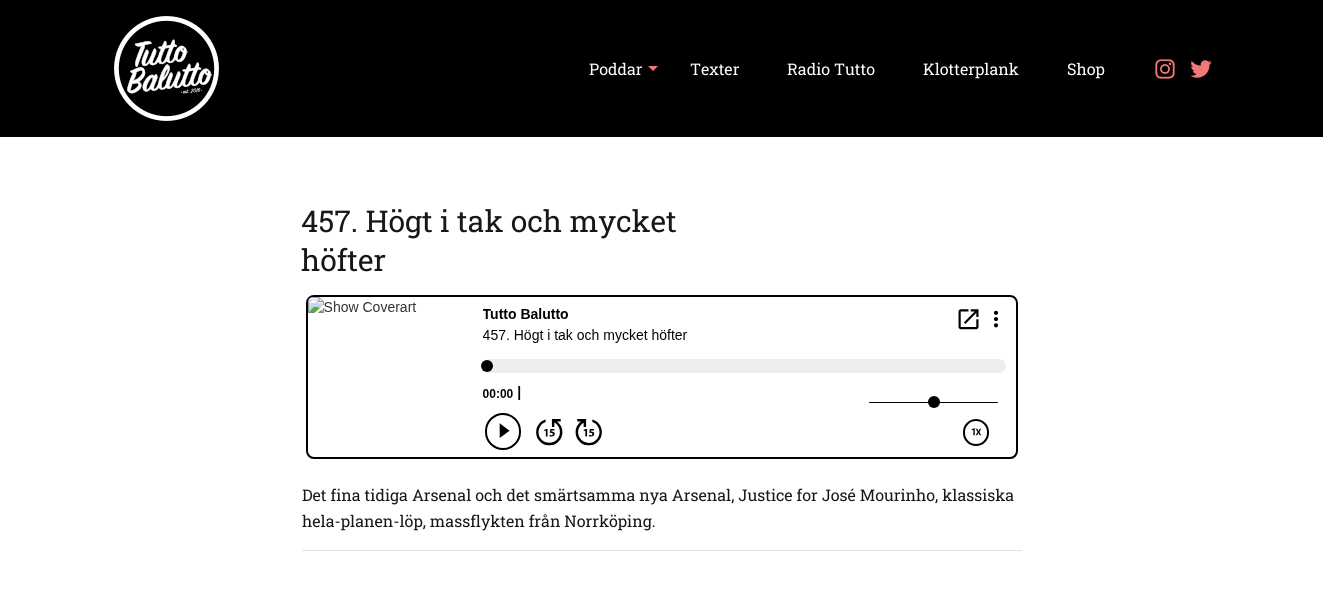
import math
import cairo

surface = cairo.ImageSurface(cairo.FORMAT_RGB24, 1323, 594)
cr = cairo.Context(surface)
options = cairo.FontOptions()
options.set_hint_metrics(cairo.HINT_METRICS_OFF)
options.set_hint_style(cairo.HINT_STYLE_NONE)
cr.set_font_options(options)
cr.set_miter_limit(4)


def rgb(code):
    cr.set_source_rgb(*(v / 255 for v in bytes.fromhex(code[-6:])))


def image(path, x, y, w, h):
    cr.save()
    cr.set_source_surface(cairo.ImageSurface.create_from_png(path), x, y)
    cr.rectangle(x, y, w, h)
    cr.fill()
    cr.restore()


rgb("#ffffff")
cr.paint()
rgb("#000000")
cr.rectangle(0, 0, 1323, 137)
cr.fill()
image("img/1.png", 114, 16, 105, 105)
rgb("#f37877")
cr.new_path()
cr.move_to(648, 66)
cr.line_to(658, 66)
cr.line_to(653, 71)
cr.close_path()
cr.fill()
image("img/2.png", 1155, 59, 20, 20)
image("img/3.png", 1190, 60, 22, 18)
image("img/4.png", 306, 295, 712, 164)
rgb("#dee2e6")
cr.rectangle(302, 550, 720, 1)
cr.fill()
cr.select_font_face("Roboto Slab")
cr.set_font_size(16)
rgb("#ffffff")
for x, y, s in [
    (589, 75, "Poddar"),
    (690, 75, "Texter"),
    (787, 75, "Radio Tutto"),
    (923, 75, "Klotterplank"),
    (1067, 75, "Shop"),
]:
    cr.move_to(x, y)
    cr.show_text(s)
cr.set_font_size(30)
rgb("#171717")
cr.move_to(301, 232)
cr.show_text("457. Högt i tak och mycket")
cr.move_to(301, 271)
cr.show_text("höfter")
cr.set_font_size(16)
cr.move_to(302, 501)
cr.show_text("Det fina tidiga Arsenal och det smärtsamma nya Arsenal, Justice for José Mourinho, klassiska")
cr.move_to(302, 527)
cr.show_text("hela-planen-löp, massflykten från Norrköping.")
surface.write_to_png("page.png")
